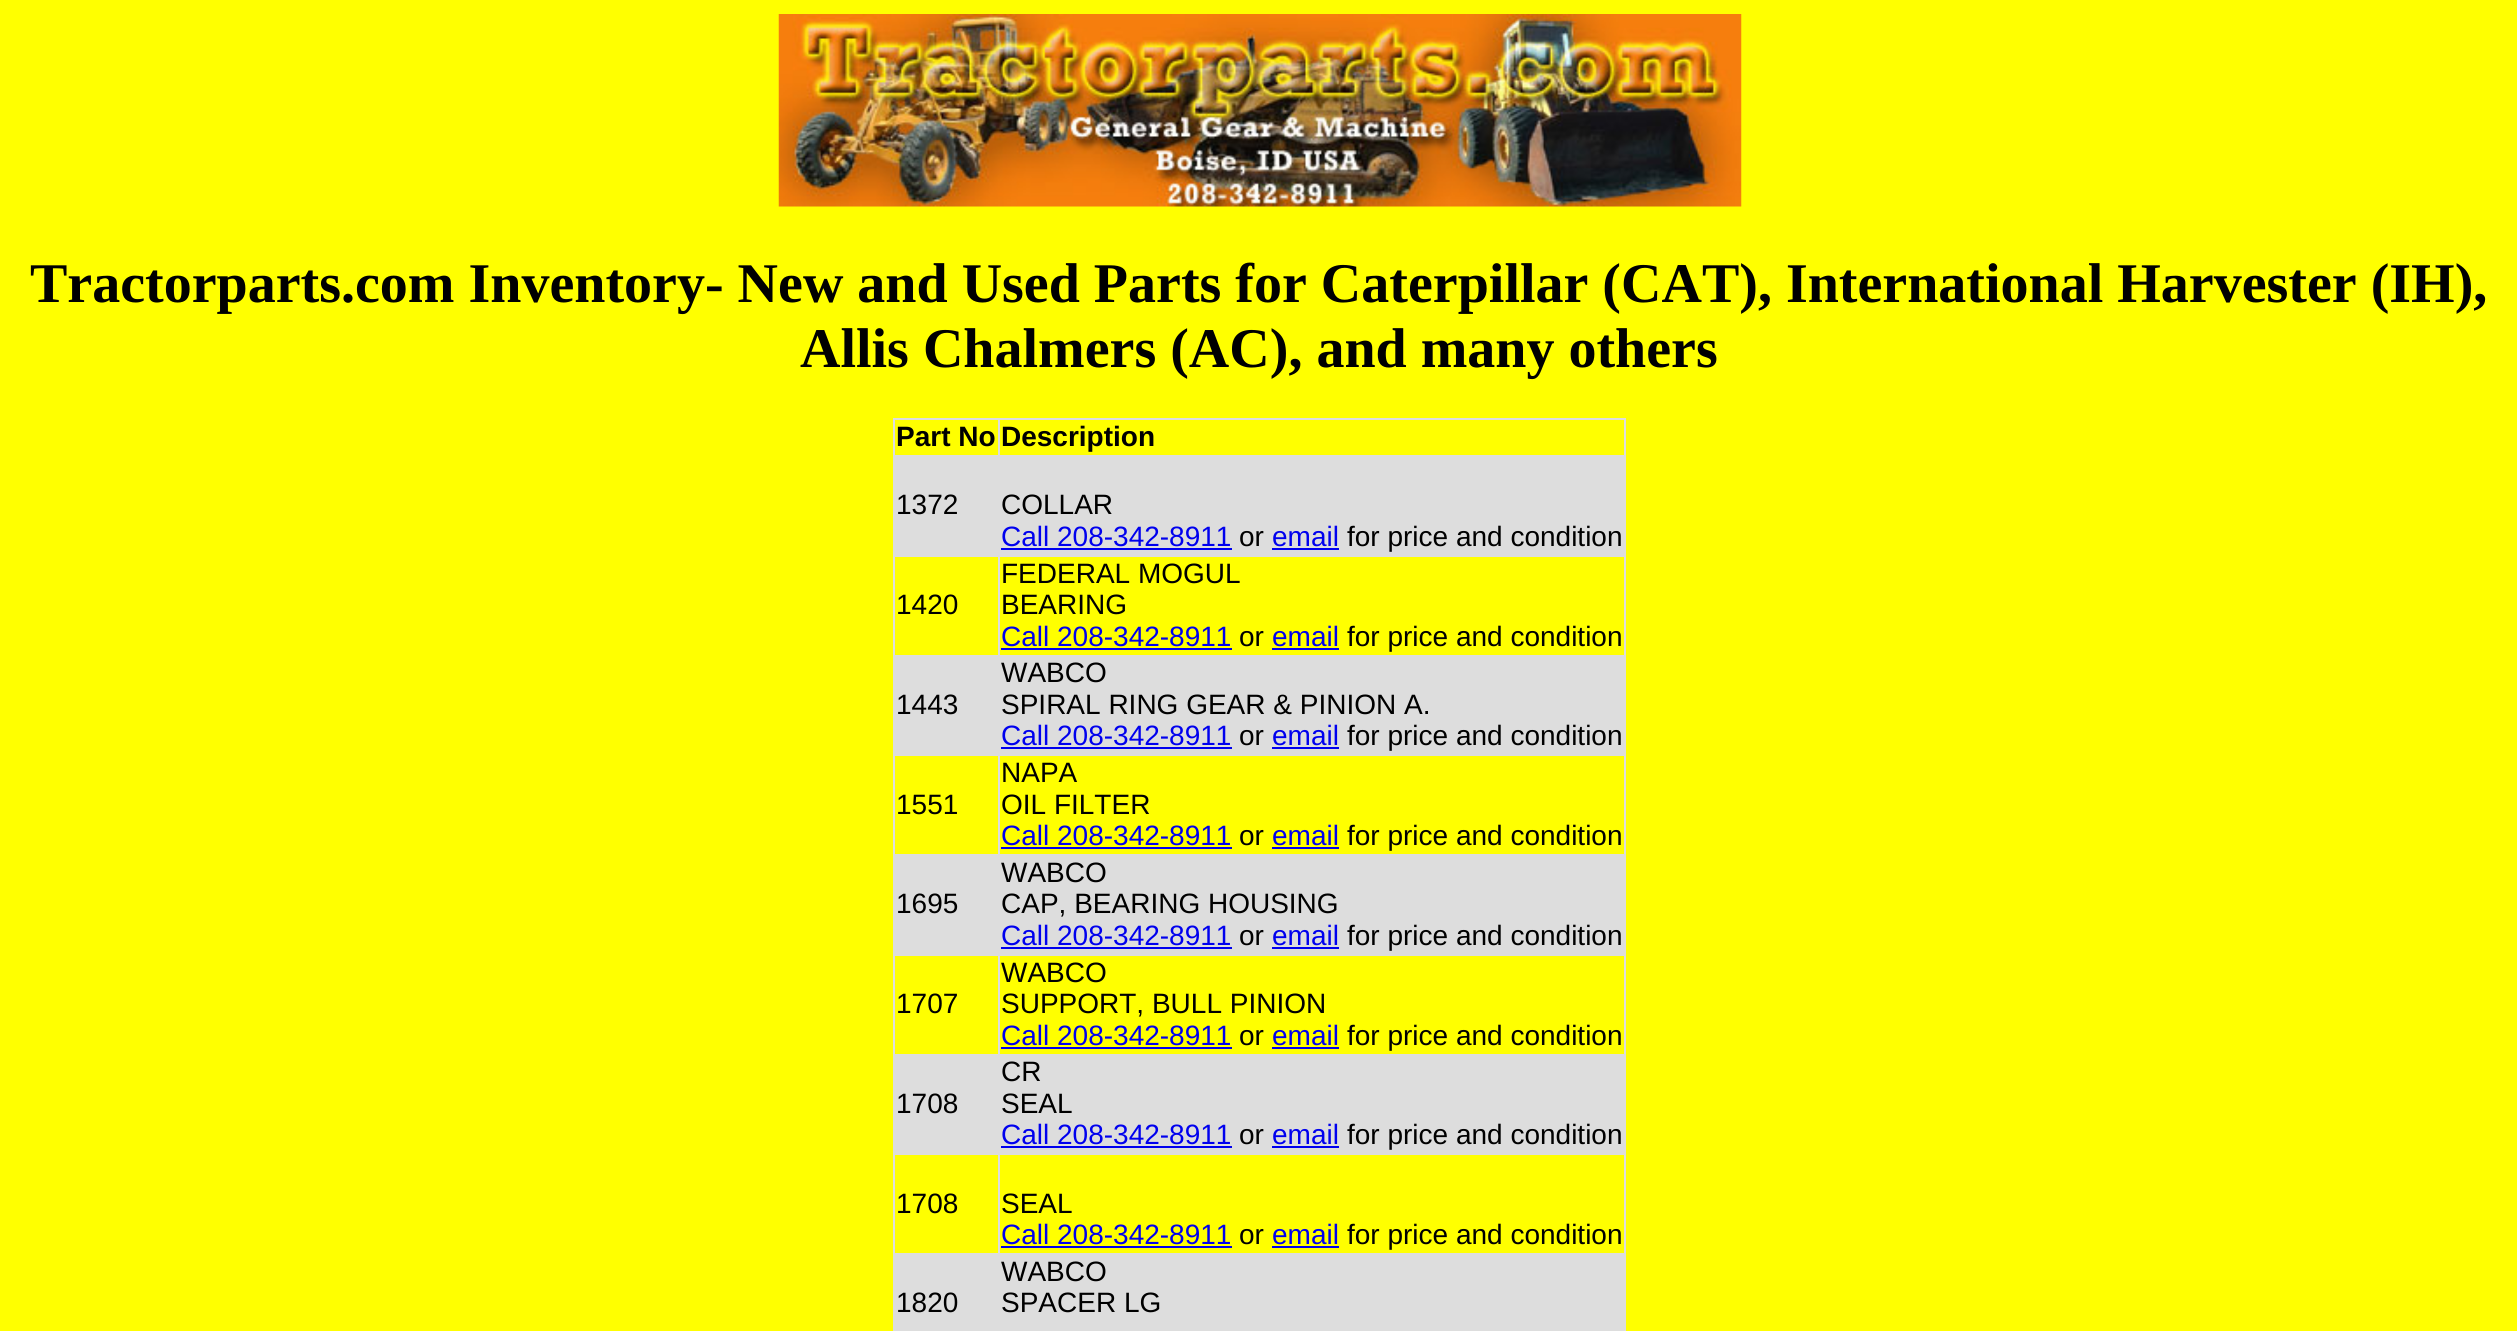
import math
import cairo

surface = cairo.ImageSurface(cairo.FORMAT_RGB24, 2517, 1331)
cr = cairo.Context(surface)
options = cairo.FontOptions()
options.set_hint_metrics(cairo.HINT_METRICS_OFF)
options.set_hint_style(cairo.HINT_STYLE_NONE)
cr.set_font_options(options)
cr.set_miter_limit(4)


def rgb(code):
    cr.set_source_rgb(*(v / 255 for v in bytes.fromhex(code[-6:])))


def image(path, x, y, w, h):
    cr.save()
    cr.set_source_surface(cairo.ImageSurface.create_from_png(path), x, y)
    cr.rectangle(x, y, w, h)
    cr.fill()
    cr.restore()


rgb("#ffff00")
cr.paint()
image("img/1.png", 778, 14, 964, 193)
for x, y, w, h, color in [
    (998, 418, 628, 2, "#dddddd"),
    (893, 455, 733, 2, "#dddddd"),
    (998, 418, 2, 39, "#dddddd"),
    (893, 418, 106, 2, "#dddddd"),
    (998, 555, 628, 2, "#dddddd"),
    (893, 655, 733, 2, "#dddddd"),
    (998, 555, 2, 101, "#dddddd"),
    (893, 555, 106, 2, "#dddddd"),
    (998, 754, 628, 2, "#dddddd"),
    (893, 854, 733, 2, "#dddddd"),
    (998, 754, 2, 102, "#dddddd"),
    (893, 754, 106, 2, "#dddddd"),
    (998, 954, 628, 2, "#dddddd"),
    (893, 1054, 733, 2, "#dddddd"),
    (998, 954, 2, 101, "#dddddd"),
    (893, 954, 106, 2, "#dddddd"),
    (998, 1153, 628, 2, "#dddddd"),
    (893, 1253, 733, 2, "#dddddd"),
    (998, 1153, 2, 102, "#dddddd"),
    (893, 1153, 106, 2, "#dddddd"),
    (893, 1253, 2, 78, "#dddddd"),
    (893, 1153, 2, 102, "#dddddd"),
    (893, 1054, 2, 101, "#dddddd"),
    (893, 954, 2, 101, "#dddddd"),
    (893, 854, 2, 102, "#dddddd"),
    (893, 754, 2, 102, "#dddddd"),
    (893, 655, 2, 101, "#dddddd"),
    (893, 555, 2, 101, "#dddddd"),
    (893, 455, 2, 102, "#dddddd"),
    (893, 418, 2, 39, "#dddddd"),
    (1624, 1253, 2, 78, "#dddddd"),
    (1624, 1153, 2, 102, "#dddddd"),
    (1624, 1054, 2, 101, "#dddddd"),
    (1624, 954, 2, 101, "#dddddd"),
    (1624, 854, 2, 102, "#dddddd"),
    (1624, 754, 2, 102, "#dddddd"),
    (1624, 655, 2, 101, "#dddddd"),
    (1624, 555, 2, 101, "#dddddd"),
    (1624, 455, 2, 102, "#dddddd"),
    (1624, 418, 2, 39, "#dddddd"),
    (895, 457, 729, 98, "#dddddd"),
    (1001, 548, 231, 2, "#0000ee"),
    (1272, 548, 67, 2, "#0000ee"),
    (1001, 648, 231, 2, "#0000ee"),
    (1272, 648, 67, 2, "#0000ee"),
    (895, 657, 729, 97, "#dddddd"),
    (1001, 747, 231, 2, "#0000ee"),
    (1272, 747, 67, 2, "#0000ee"),
    (1001, 847, 231, 2, "#0000ee"),
    (1272, 847, 67, 2, "#0000ee"),
    (895, 856, 729, 98, "#dddddd"),
    (1001, 947, 231, 2, "#0000ee"),
    (1272, 947, 67, 2, "#0000ee"),
    (1001, 1047, 231, 2, "#0000ee"),
    (1272, 1047, 67, 2, "#0000ee"),
    (895, 1056, 729, 97, "#dddddd"),
    (1001, 1146, 231, 2, "#0000ee"),
    (1272, 1146, 67, 2, "#0000ee"),
    (1001, 1246, 231, 2, "#0000ee"),
    (1272, 1246, 67, 2, "#0000ee"),
    (895, 1255, 729, 76, "#dddddd"),
]:
    rgb(color)
    cr.rectangle(x, y, w, h)
    cr.fill()
cr.select_font_face("Liberation Serif", cairo.FONT_SLANT_NORMAL, cairo.FONT_WEIGHT_BOLD)
cr.set_font_size(56)
rgb("#000000")
cr.move_to(30, 302)
cr.show_text("Tractorparts.com Inventory- New and Used Parts for Caterpillar (CAT), International Harvester (IH),")
cr.move_to(800, 367)
cr.show_text("Allis Chalmers (AC), and many others")
cr.select_font_face("Liberation Sans", cairo.FONT_SLANT_NORMAL, cairo.FONT_WEIGHT_BOLD)
cr.set_font_size(28)
cr.move_to(896, 446)
cr.show_text("Part No")
cr.move_to(1001, 446)
cr.show_text("Description")
cr.select_font_face("Liberation Sans")
cr.move_to(896, 514)
cr.show_text("1372")
cr.move_to(1001, 514)
cr.show_text("COLLAR")
rgb("#0000ee")
cr.move_to(1001, 546)
cr.show_text("Call 208-342-8911")
rgb("#000000")
cr.move_to(1239, 546)
cr.show_text("or")
rgb("#0000ee")
cr.move_to(1272, 546)
cr.show_text("email")
rgb("#000000")
for x, y, s in [
    (1347, 546, "for price and condition"),
    (896, 614, "1420"),
    (1001, 583, "FEDERAL MOGUL"),
    (1001, 614, "BEARING"),
]:
    cr.move_to(x, y)
    cr.show_text(s)
rgb("#0000ee")
cr.move_to(1001, 646)
cr.show_text("Call 208-342-8911")
rgb("#000000")
cr.move_to(1239, 646)
cr.show_text("or")
rgb("#0000ee")
cr.move_to(1272, 646)
cr.show_text("email")
rgb("#000000")
for x, y, s in [
    (1347, 646, "for price and condition"),
    (896, 714, "1443"),
    (1001, 682, "WABCO"),
    (1001, 714, "SPIRAL RING GEAR & PINION A."),
]:
    cr.move_to(x, y)
    cr.show_text(s)
rgb("#0000ee")
cr.move_to(1001, 745)
cr.show_text("Call 208-342-8911")
rgb("#000000")
cr.move_to(1239, 745)
cr.show_text("or")
rgb("#0000ee")
cr.move_to(1272, 745)
cr.show_text("email")
rgb("#000000")
for x, y, s in [
    (1347, 745, "for price and condition"),
    (896, 814, "1551"),
    (1001, 782, "NAPA"),
    (1001, 814, "OIL FILTER"),
]:
    cr.move_to(x, y)
    cr.show_text(s)
rgb("#0000ee")
cr.move_to(1001, 845)
cr.show_text("Call 208-342-8911")
rgb("#000000")
cr.move_to(1239, 845)
cr.show_text("or")
rgb("#0000ee")
cr.move_to(1272, 845)
cr.show_text("email")
rgb("#000000")
for x, y, s in [
    (1347, 845, "for price and condition"),
    (896, 913, "1695"),
    (1001, 882, "WABCO"),
    (1001, 913, "CAP, BEARING HOUSING"),
]:
    cr.move_to(x, y)
    cr.show_text(s)
rgb("#0000ee")
cr.move_to(1001, 945)
cr.show_text("Call 208-342-8911")
rgb("#000000")
cr.move_to(1239, 945)
cr.show_text("or")
rgb("#0000ee")
cr.move_to(1272, 945)
cr.show_text("email")
rgb("#000000")
for x, y, s in [
    (1347, 945, "for price and condition"),
    (896, 1013, "1707"),
    (1001, 982, "WABCO"),
    (1001, 1013, "SUPPORT, BULL PINION"),
]:
    cr.move_to(x, y)
    cr.show_text(s)
rgb("#0000ee")
cr.move_to(1001, 1045)
cr.show_text("Call 208-342-8911")
rgb("#000000")
cr.move_to(1239, 1045)
cr.show_text("or")
rgb("#0000ee")
cr.move_to(1272, 1045)
cr.show_text("email")
rgb("#000000")
for x, y, s in [
    (1347, 1045, "for price and condition"),
    (896, 1113, "1708"),
    (1001, 1081, "CR"),
    (1001, 1113, "SEAL"),
]:
    cr.move_to(x, y)
    cr.show_text(s)
rgb("#0000ee")
cr.move_to(1001, 1144)
cr.show_text("Call 208-342-8911")
rgb("#000000")
cr.move_to(1239, 1144)
cr.show_text("or")
rgb("#0000ee")
cr.move_to(1272, 1144)
cr.show_text("email")
rgb("#000000")
for x, y, s in [
    (1347, 1144, "for price and condition"),
    (896, 1213, "1708"),
    (1001, 1213, "SEAL"),
]:
    cr.move_to(x, y)
    cr.show_text(s)
rgb("#0000ee")
cr.move_to(1001, 1244)
cr.show_text("Call 208-342-8911")
rgb("#000000")
cr.move_to(1239, 1244)
cr.show_text("or")
rgb("#0000ee")
cr.move_to(1272, 1244)
cr.show_text("email")
rgb("#000000")
for x, y, s in [
    (1347, 1244, "for price and condition"),
    (896, 1312, "1820"),
    (1001, 1281, "WABCO"),
    (1001, 1312, "SPACER LG"),
]:
    cr.move_to(x, y)
    cr.show_text(s)
surface.write_to_png("page.png")
